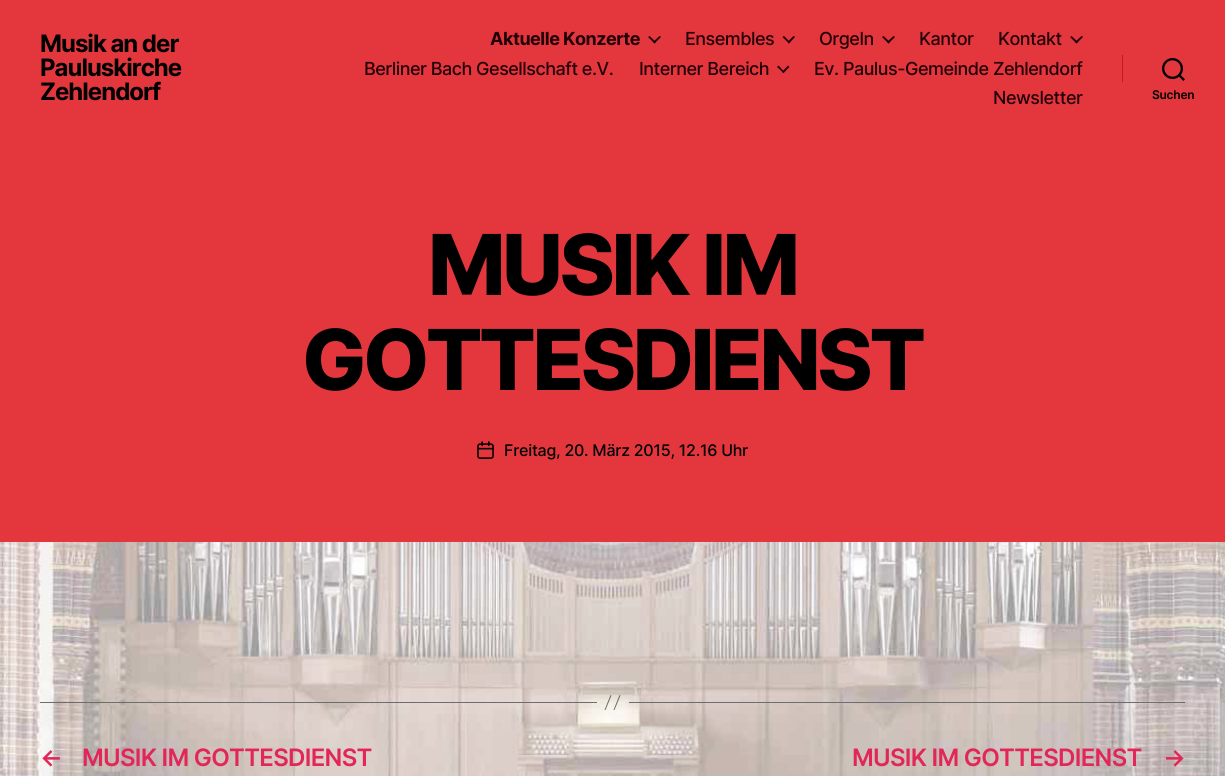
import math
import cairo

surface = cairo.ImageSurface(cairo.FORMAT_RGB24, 1225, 776)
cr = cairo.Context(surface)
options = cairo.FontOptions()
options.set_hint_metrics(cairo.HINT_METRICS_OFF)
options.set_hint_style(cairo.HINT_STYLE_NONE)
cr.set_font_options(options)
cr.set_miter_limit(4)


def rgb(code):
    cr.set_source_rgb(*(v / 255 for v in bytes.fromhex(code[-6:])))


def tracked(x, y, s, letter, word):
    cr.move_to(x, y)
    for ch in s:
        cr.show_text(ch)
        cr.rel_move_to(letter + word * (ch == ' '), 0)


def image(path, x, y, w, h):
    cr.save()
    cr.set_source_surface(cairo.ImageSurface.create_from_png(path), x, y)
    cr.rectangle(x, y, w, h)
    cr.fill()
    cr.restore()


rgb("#ffffff")
cr.paint()
image("img/1.png", 0, 542, 1225, 234)
rgb("#e3373d")
cr.rectangle(0, 0, 1225, 542)
cr.fill()
rgb("#230007")
cr.new_path()
cr.move_to(648, 37)
cr.line_to(649.5, 36)
cr.line_to(656, 42)
cr.line_to(654.5, 43.5)
cr.close_path()
cr.fill()
cr.new_path()
cr.move_to(653, 42)
cr.line_to(659.5, 36)
cr.line_to(661, 37)
cr.line_to(654.5, 43.5)
cr.close_path()
cr.fill()
cr.new_path()
cr.move_to(782.5, 37)
cr.line_to(784, 36)
cr.line_to(790, 42)
cr.line_to(789, 43.5)
cr.close_path()
cr.fill()
cr.new_path()
cr.move_to(787.5, 42)
cr.line_to(793.5, 36)
cr.line_to(795, 37)
cr.line_to(789, 43.5)
cr.close_path()
cr.fill()
cr.new_path()
cr.move_to(882, 37)
cr.line_to(883.5, 36)
cr.line_to(890, 42)
cr.line_to(888.5, 43.5)
cr.close_path()
cr.fill()
cr.new_path()
cr.move_to(887, 42)
cr.line_to(893.5, 36)
cr.line_to(895, 37)
cr.line_to(888.5, 43.5)
cr.close_path()
cr.fill()
cr.new_path()
cr.move_to(1070, 37)
cr.line_to(1071.5, 36)
cr.line_to(1078, 42)
cr.line_to(1076.5, 43.5)
cr.close_path()
cr.fill()
cr.new_path()
cr.move_to(1075, 42)
cr.line_to(1081.5, 36)
cr.line_to(1083, 37)
cr.line_to(1076.5, 43.5)
cr.close_path()
cr.fill()
cr.new_path()
cr.move_to(777, 67)
cr.line_to(778.5, 65.5)
cr.line_to(784.5, 72)
cr.line_to(783.5, 73)
cr.close_path()
cr.fill()
cr.new_path()
cr.move_to(782, 72)
cr.line_to(788, 65.5)
cr.line_to(789.5, 67)
cr.line_to(783.5, 73)
cr.close_path()
cr.fill()
rgb("#c7181e")
cr.rectangle(1122, 55, 1, 27)
cr.fill()
image("img/2.png", 1162, 58, 23, 23)
image("img/3.png", 477, 441, 17, 18)
rgb("#6d6d6d")
cr.rectangle(629, 702, 556, 1)
cr.fill()
cr.rectangle(40, 702, 557, 1)
cr.fill()
cr.new_path()
cr.move_to(610.5, 695)
cr.line_to(611.5, 695.5)
cr.line_to(605.5, 710)
cr.line_to(604.5, 710)
cr.close_path()
cr.move_to(619.5, 695)
cr.line_to(620.5, 695.5)
cr.line_to(614.5, 710)
cr.line_to(613.5, 710)
cr.close_path()
cr.fill()
cr.select_font_face("Inter", cairo.FONT_SLANT_NORMAL, cairo.FONT_WEIGHT_BOLD)
cr.set_font_size(24)
rgb("#000000")
for x, y, s in [
    (40, 52, "Musik an der"),
    (40, 76, "Pauluskirche"),
    (40, 100, "Zehlendorf"),
]:
    tracked(x, y, s, -1, 0)
cr.set_font_size(18)
rgb("#230007")
tracked(490, 45, "Aktuelle Konzerte", -0.5, 0)
cr.select_font_face("Inter Medium")
for x, y, s in [
    (685, 45, "Ensembles"),
    (819, 45, "Orgeln"),
    (919, 45, "Kantor"),
    (998, 45, "Kontakt"),
    (364, 75, "Berliner Bach Gesellschaft e.V."),
    (639, 75, "Interner Bereich"),
    (814, 75, "Ev. Paulus-Gemeinde Zehlendorf"),
    (993, 104, "Newsletter"),
]:
    tracked(x, y, s, -0.5, 0)
cr.select_font_face("Inter SemiBold")
cr.set_font_size(12)
rgb("#000000")
tracked(1152, 99, "Suchen", -0.25, 0)
cr.select_font_face("Inter ExtraBold")
cr.set_font_size(84)
tracked(428, 295, "MUSIK IM", -3.5, 0)
tracked(302, 390, "GOTTESDIENST", -3.5, 0)
cr.select_font_face("Inter Medium")
cr.set_font_size(16)
tracked(504, 456, "Freitag, 20. März 2015, 12.16 Uhr", -0.25, 0)
cr.select_font_face("Inter SemiBold")
cr.set_font_size(24)
rgb("#e22658")
for x, y, s in [
    (40, 766, "←"),
    (82, 766, "MUSIK IM GOTTESDIENST"),
    (852, 766, "MUSIK IM GOTTESDIENST"),
    (1163, 766, "→"),
]:
    tracked(x, y, s, -0.7, 0)
surface.write_to_png("page.png")
